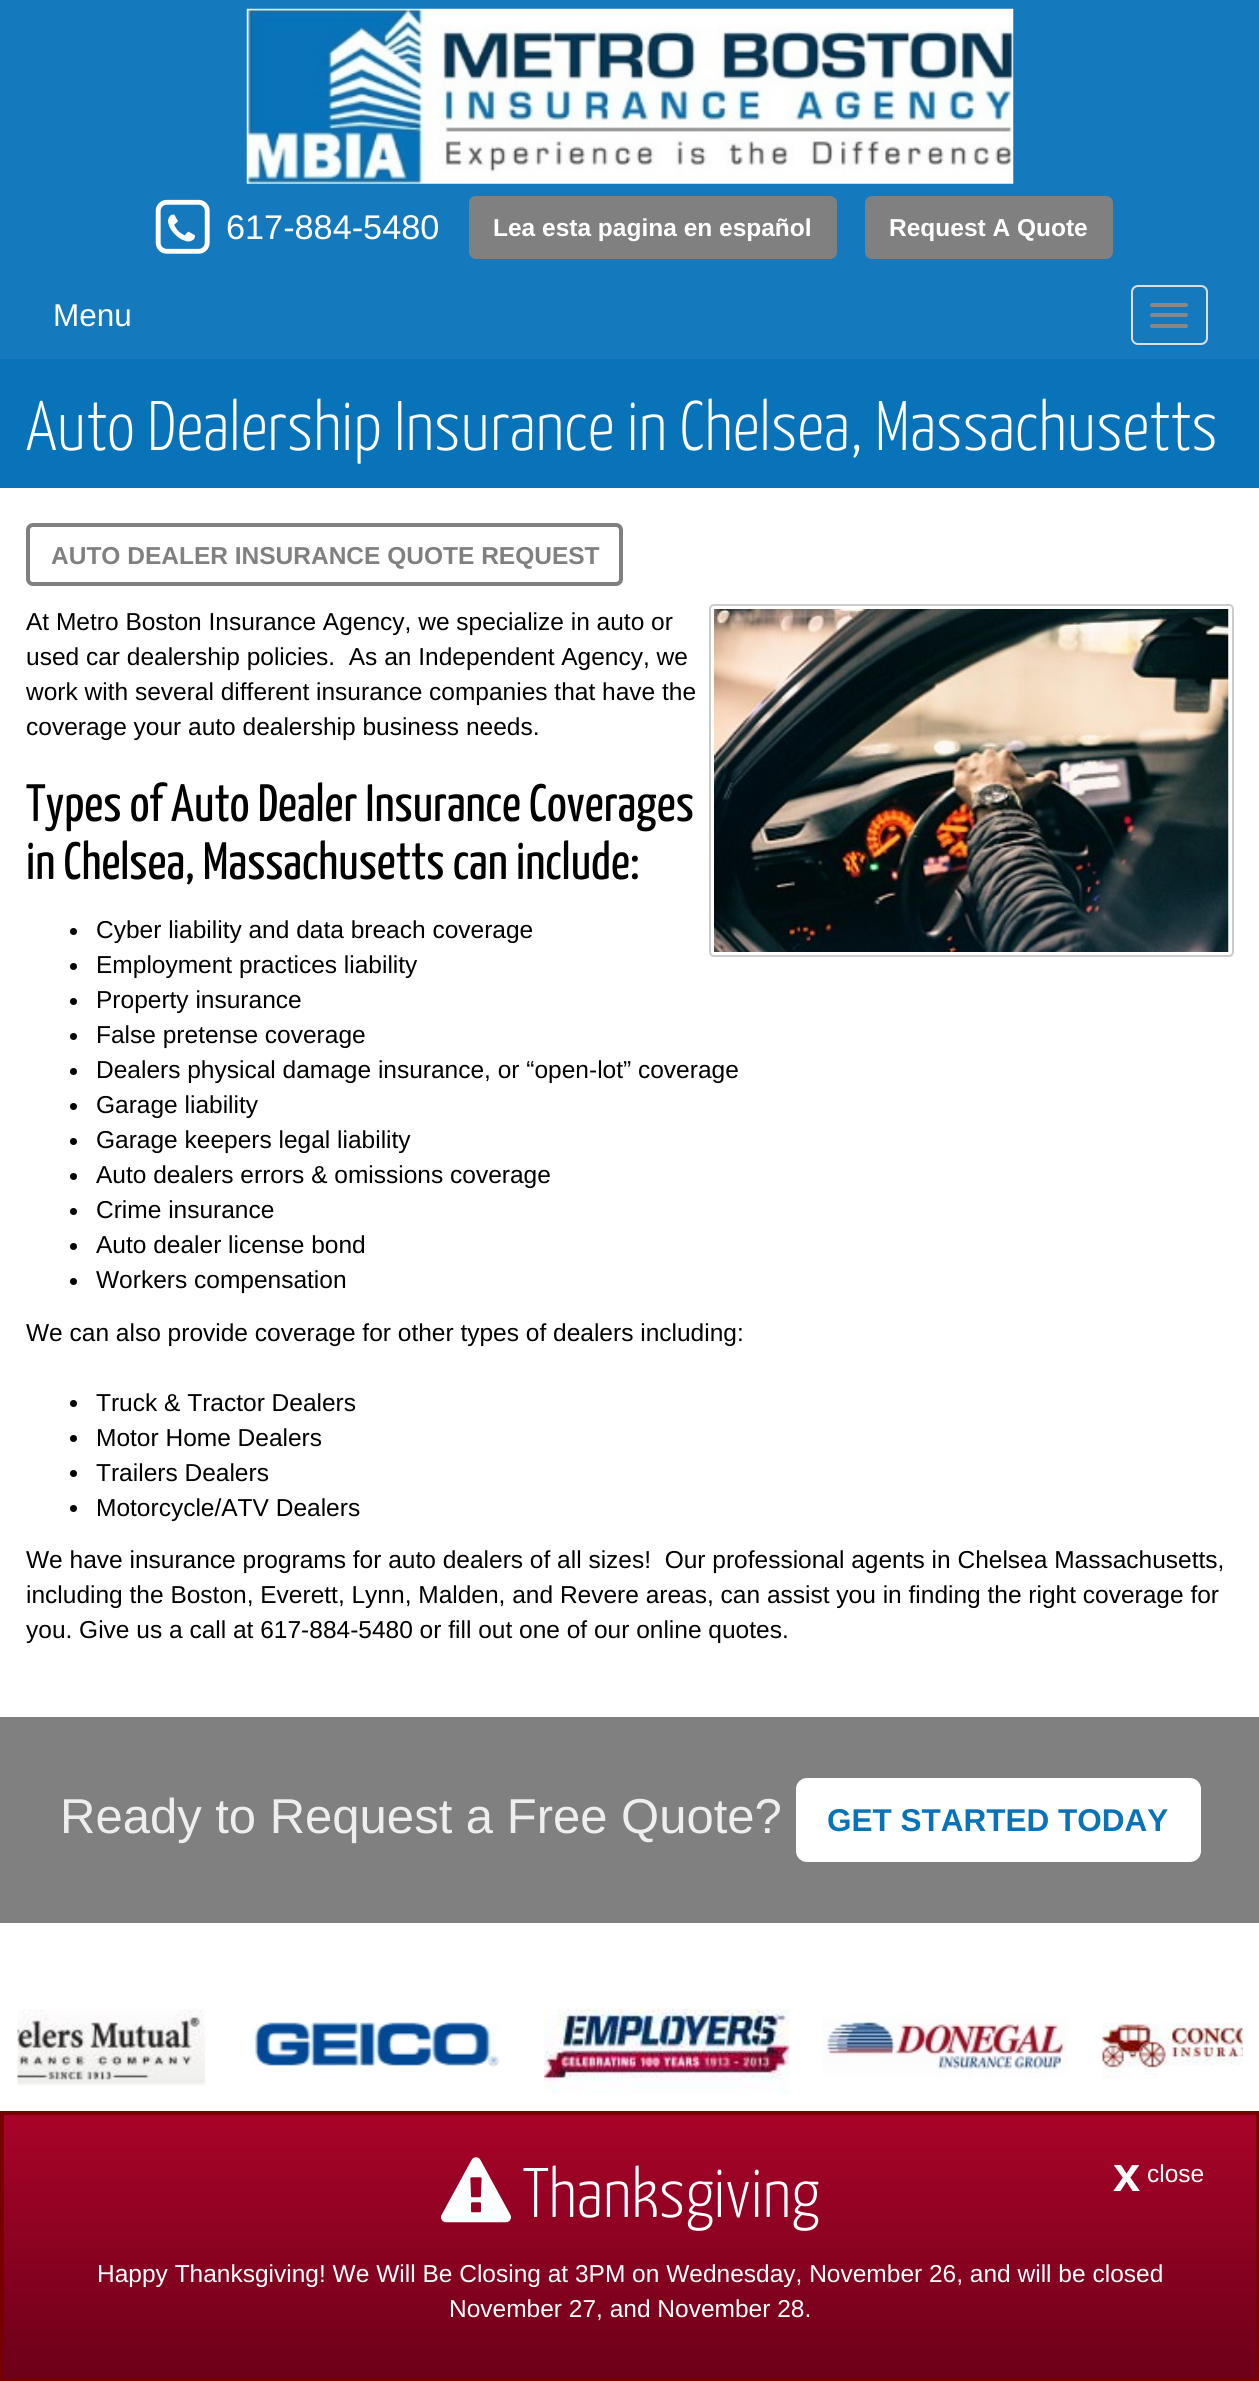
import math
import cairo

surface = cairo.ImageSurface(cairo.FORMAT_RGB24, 1259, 2381)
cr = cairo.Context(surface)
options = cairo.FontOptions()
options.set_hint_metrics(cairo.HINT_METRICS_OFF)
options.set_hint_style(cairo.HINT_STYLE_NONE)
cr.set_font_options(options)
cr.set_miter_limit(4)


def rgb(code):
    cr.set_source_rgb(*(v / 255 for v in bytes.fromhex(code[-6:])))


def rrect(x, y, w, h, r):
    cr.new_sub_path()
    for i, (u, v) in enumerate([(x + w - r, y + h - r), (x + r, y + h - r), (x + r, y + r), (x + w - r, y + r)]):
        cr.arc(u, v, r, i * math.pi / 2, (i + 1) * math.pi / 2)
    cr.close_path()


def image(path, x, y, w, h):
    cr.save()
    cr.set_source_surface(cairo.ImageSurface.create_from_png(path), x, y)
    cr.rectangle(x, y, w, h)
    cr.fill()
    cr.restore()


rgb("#ffffff")
cr.paint()
rgb("#147abd")
cr.rectangle(0, 0, 1259, 359)
cr.fill()
image("img/1.png", 246, 8, 768, 176)
image("img/2.png", 155, 199, 55, 55)
image("img/3.png", 168, 214, 27, 28)
rgb("#808080")
rrect(471, 198, 364, 59, 5)
cr.fill_preserve()
cr.set_line_width(4)
cr.stroke()
rrect(867, 198, 244, 59, 5)
cr.fill_preserve()
cr.stroke()
rrect(1132, 286, 75, 58, 6)
rgb("#dddddd")
cr.set_line_width(2)
cr.stroke()
rgb("#888888")
rrect(1150, 303, 38, 4, 2)
cr.fill()
rrect(1150, 313, 38, 4, 2)
cr.fill()
rrect(1150, 324, 38, 4, 2)
cr.fill()
rgb("#0873b9")
cr.rectangle(0, 359, 1259, 129)
cr.fill()
rrect(28, 525, 593, 59, 5)
rgb("#808080")
cr.set_line_width(4)
cr.stroke()
rrect(710, 605, 523, 351, 4)
rgb("#cccccc")
cr.set_line_width(2)
cr.stroke()
image("img/4.png", 714, 609, 515, 343)
rgb("#000000")
cr.arc(73.5, 931.5, 3.5, 0, 2 * math.pi)
cr.fill()
cr.arc(73.5, 966.5, 3.5, 0, 2 * math.pi)
cr.fill()
cr.arc(73.5, 1001.5, 3.5, 0, 2 * math.pi)
cr.fill()
cr.arc(73.5, 1036.5, 3.5, 0, 2 * math.pi)
cr.fill()
cr.arc(73.5, 1071.5, 3.5, 0, 2 * math.pi)
cr.fill()
cr.arc(73.5, 1106.5, 3.5, 0, 2 * math.pi)
cr.fill()
cr.arc(73.5, 1141.5, 3.5, 0, 2 * math.pi)
cr.fill()
cr.arc(73.5, 1176.5, 3.5, 0, 2 * math.pi)
cr.fill()
cr.arc(73.5, 1211.5, 3.5, 0, 2 * math.pi)
cr.fill()
cr.arc(73.5, 1246.5, 3.5, 0, 2 * math.pi)
cr.fill()
cr.arc(73.5, 1281.5, 3.5, 0, 2 * math.pi)
cr.fill()
cr.arc(73.5, 1403.5, 3.5, 0, 2 * math.pi)
cr.fill()
cr.arc(73.5, 1438.5, 3.5, 0, 2 * math.pi)
cr.fill()
cr.arc(73.5, 1473.5, 3.5, 0, 2 * math.pi)
cr.fill()
cr.arc(73.5, 1508.5, 3.5, 0, 2 * math.pi)
cr.fill()
rgb("#808080")
cr.rectangle(0, 1717, 1259, 206)
cr.fill()
rgb("#ffffff")
rrect(798, 1780, 401, 80, 9)
cr.fill_preserve()
cr.set_line_width(4)
cr.stroke()
image("img/5.png", 17, 2009, 189, 77)
image("img/6.png", 251, 2022, 249, 45)
image("img/7.png", 544, 2007, 246, 87)
image("img/8.png", 822, 2013, 246, 66)
image("img/9.png", 1102, 2022, 141, 57)
gradient = cairo.LinearGradient(630, 2114, 630, 2378)
gradient.add_color_stop_rgba(0, 0.663, 0.012, 0.161, 1)
gradient.add_color_stop_rgba(0.44, 0.561, 0.008, 0.133, 1)
gradient.add_color_stop_rgba(1, 0.427, 0, 0.098, 1)
cr.set_source(gradient)
cr.rectangle(4, 2115, 1252, 263)
cr.fill()
cr.rectangle(2, 2113, 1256, 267)
rgb("#770000")
cr.stroke()
image("img/10.png", 441, 2157, 70, 66)
cr.select_font_face("Liberation Sans")
cr.set_font_size(34.25)
rgb("#ffffff")
cr.move_to(226, 239)
cr.show_text("617-884-5480")
cr.select_font_face("Liberation Sans", cairo.FONT_SLANT_NORMAL, cairo.FONT_WEIGHT_BOLD)
cr.set_font_size(24.5)
cr.move_to(493, 236)
cr.show_text("Lea esta pagina en español")
cr.move_to(889, 236)
cr.show_text("Request A Quote")
cr.select_font_face("Liberation Sans")
cr.set_font_size(31.5)
cr.move_to(53, 326)
cr.show_text("Menu")
cr.select_font_face("Yanone Kaffeesatz Light")
cr.set_font_size(70)
cr.move_to(26, 450)
cr.show_text("Auto Dealership Insurance in Chelsea, Massachusetts")
cr.select_font_face("Liberation Sans", cairo.FONT_SLANT_NORMAL, cairo.FONT_WEIGHT_BOLD)
cr.set_font_size(24.5)
rgb("#808080")
cr.move_to(51, 564)
cr.show_text("AUTO DEALER INSURANCE QUOTE REQUEST")
cr.select_font_face("Liberation Sans")
rgb("#000000")
for x, y, s in [
    (26, 630, "At Metro Boston Insurance Agency, we specialize in auto or"),
    (26, 665, "used car dealership policies.  As an Independent Agency, we"),
    (26, 700, "work with several different insurance companies that have the"),
    (26, 735, "coverage your auto dealership business needs."),
]:
    cr.move_to(x, y)
    cr.show_text(s)
cr.select_font_face("Yanone Kaffeesatz")
cr.set_font_size(52.5)
cr.move_to(26, 821)
cr.show_text("Types of Auto Dealer Insurance Coverages")
cr.move_to(26, 879)
cr.show_text("in Chelsea, Massachusetts can include:")
cr.select_font_face("Liberation Sans")
cr.set_font_size(24.5)
for x, y, s in [
    (96, 938, "Cyber liability and data breach coverage"),
    (96, 973, "Employment practices liability"),
    (96, 1008, "Property insurance"),
    (96, 1043, "False pretense coverage"),
    (96, 1078, "Dealers physical damage insurance, or “open-lot” coverage"),
    (96, 1113, "Garage liability"),
    (96, 1148, "Garage keepers legal liability"),
    (96, 1183, "Auto dealers errors & omissions coverage"),
    (96, 1218, "Crime insurance"),
    (96, 1253, "Auto dealer license bond"),
    (96, 1288, "Workers compensation"),
    (26, 1341, "We can also provide coverage for other types of dealers including:"),
    (96, 1411, "Truck & Tractor Dealers"),
    (96, 1446, "Motor Home Dealers"),
    (96, 1481, "Trailers Dealers"),
    (96, 1516, "Motorcycle/ATV Dealers"),
    (26, 1568, "We have insurance programs for auto dealers of all sizes!  Our professional agents in Chelsea Massachusetts,"),
    (26, 1603, "including the Boston, Everett, Lynn, Malden, and Revere areas, can assist you in finding the right coverage for"),
    (26, 1638, "you. Give us a call at 617-884-5480 or fill out one of our online quotes."),
]:
    cr.move_to(x, y)
    cr.show_text(s)
cr.set_font_size(49)
rgb("#eeeeee")
cr.move_to(60, 1833)
cr.show_text("Ready to Request a Free Quote?")
cr.select_font_face("Liberation Sans", cairo.FONT_SLANT_NORMAL, cairo.FONT_WEIGHT_BOLD)
cr.set_font_size(31.5)
rgb("#0873b9")
cr.move_to(827, 1831)
cr.show_text("GET STARTED TODAY")
cr.set_font_size(49)
rgb("#ffffff")
cr.move_to(1113, 2191)
cr.show_text("x")
cr.select_font_face("Liberation Sans")
cr.set_font_size(24.5)
cr.move_to(1147, 2182)
cr.show_text("close")
cr.select_font_face("Yanone Kaffeesatz Light")
cr.set_font_size(70)
cr.move_to(523, 2217)
cr.show_text("Thanksgiving")
cr.select_font_face("Liberation Sans")
cr.set_font_size(24.5)
cr.move_to(97, 2282)
cr.show_text("Happy Thanksgiving! We Will Be Closing at 3PM on Wednesday, November 26, and will be closed")
cr.move_to(449, 2317)
cr.show_text("November 27, and November 28.")
surface.write_to_png("page.png")
